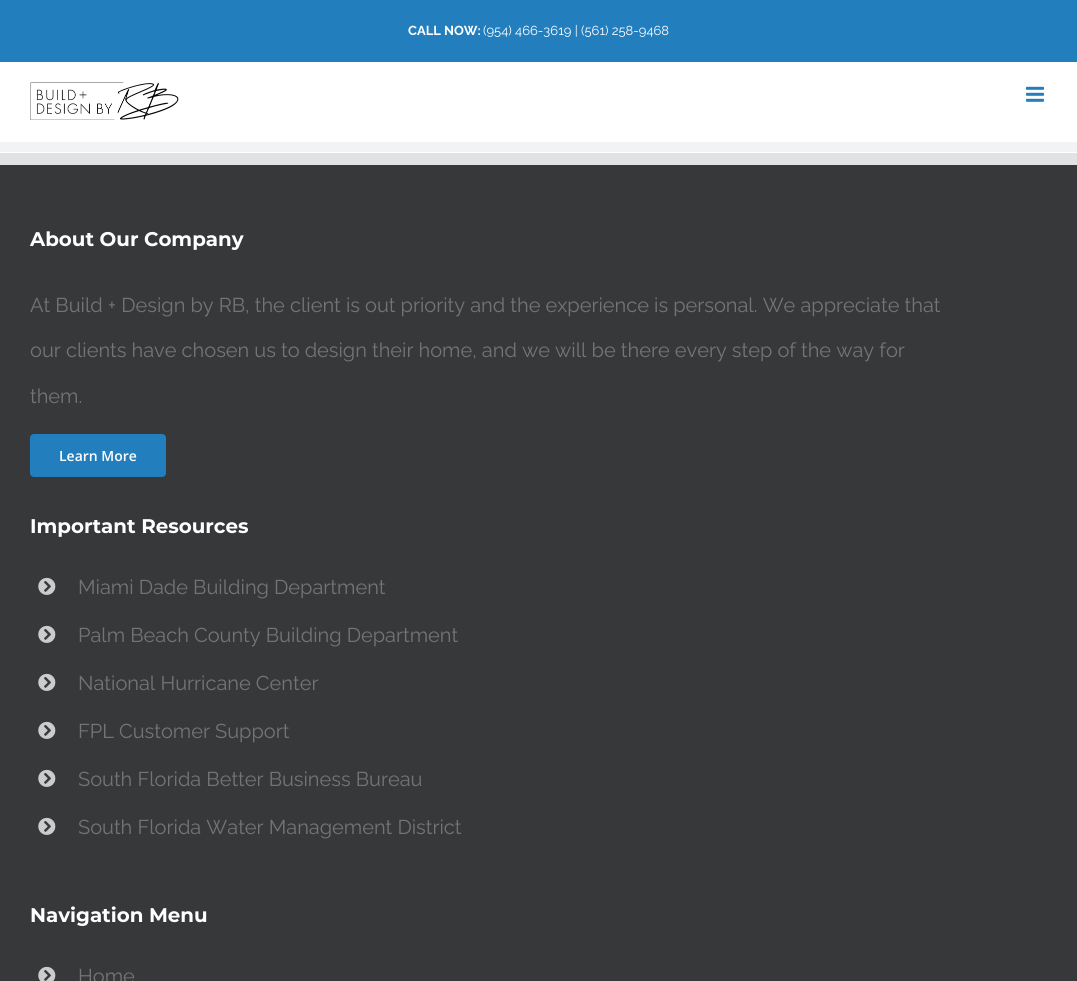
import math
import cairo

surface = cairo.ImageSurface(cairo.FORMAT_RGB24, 1077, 981)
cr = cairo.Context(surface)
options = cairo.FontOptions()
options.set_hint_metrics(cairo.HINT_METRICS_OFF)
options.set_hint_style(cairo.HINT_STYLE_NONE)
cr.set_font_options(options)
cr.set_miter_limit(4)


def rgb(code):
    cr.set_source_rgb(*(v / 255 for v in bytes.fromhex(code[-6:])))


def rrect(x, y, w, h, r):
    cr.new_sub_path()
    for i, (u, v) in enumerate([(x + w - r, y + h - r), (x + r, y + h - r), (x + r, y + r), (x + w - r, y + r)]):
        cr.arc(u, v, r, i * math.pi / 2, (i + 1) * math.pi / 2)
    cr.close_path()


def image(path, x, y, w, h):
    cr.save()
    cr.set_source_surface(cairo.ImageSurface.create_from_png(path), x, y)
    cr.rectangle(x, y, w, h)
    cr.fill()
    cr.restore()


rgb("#ffffff")
cr.paint()
rgb("#237ebe")
cr.rectangle(0, 0, 1077, 62)
cr.fill()
image("img/1.png", 30, 82, 149, 38)
image("img/2.png", 1026, 86, 18, 16)
for x, y, w, h, color in [
    (0, 142, 1077, 10, "#f2f3f5"),
    (0, 165, 1077, 816, "#363839"),
    (0, 153, 1077, 12, "#e2e2e2"),
]:
    rgb(color)
    cr.rectangle(x, y, w, h)
    cr.fill()
rgb("#237ebe")
rrect(30, 434, 136, 43, 4)
cr.fill()
image("img/3.png", 38, 577, 18, 18)
image("img/3.png", 38, 625, 18, 18)
image("img/3.png", 38, 673, 18, 18)
image("img/3.png", 38, 721, 18, 18)
image("img/3.png", 38, 769, 18, 18)
image("img/3.png", 38, 817, 18, 18)
image("img/4.png", 38, 966, 18, 15)
cr.select_font_face("Raleway", cairo.FONT_SLANT_NORMAL, cairo.FONT_WEIGHT_BOLD)
cr.set_font_size(13)
rgb("#ffffff")
cr.move_to(408, 35)
cr.show_text("CALL NOW:")
cr.select_font_face("Raleway")
cr.move_to(483, 35)
cr.show_text("(954) 466-3619 | (561) 258-9468")
cr.select_font_face("Montserrat", cairo.FONT_SLANT_NORMAL, cairo.FONT_WEIGHT_BOLD)
cr.set_font_size(19.8)
cr.move_to(30, 246)
cr.show_text("About Our Company")
cr.select_font_face("Raleway")
cr.set_font_size(20)
rgb("#747474")
for x, y, s in [
    (30, 312, "At Build + Design by RB, the client is out priority and the experience is personal. We appreciate that"),
    (30, 357, "our clients have chosen us to design their home, and we will be there every step of the way for"),
    (30, 403, "them."),
]:
    cr.move_to(x, y)
    cr.show_text(s)
cr.select_font_face("Open Sans SemiBold")
cr.set_font_size(14)
rgb("#ffffff")
cr.move_to(59, 461)
cr.show_text("Learn More")
cr.select_font_face("Montserrat", cairo.FONT_SLANT_NORMAL, cairo.FONT_WEIGHT_BOLD)
cr.set_font_size(19.8)
cr.move_to(30, 533)
cr.show_text("Important Resources")
cr.select_font_face("Raleway")
cr.set_font_size(20)
rgb("#747474")
for x, y, s in [
    (78, 594, "Miami Dade Building Department"),
    (78, 642, "Palm Beach County Building Department"),
    (78, 690, "National Hurricane Center"),
    (78, 738, "FPL Customer Support"),
    (78, 786, "South Florida Better Business Bureau"),
    (78, 834, "South Florida Water Management District"),
]:
    cr.move_to(x, y)
    cr.show_text(s)
cr.select_font_face("Montserrat", cairo.FONT_SLANT_NORMAL, cairo.FONT_WEIGHT_BOLD)
cr.set_font_size(19.8)
rgb("#ffffff")
cr.move_to(30, 922)
cr.show_text("Navigation Menu")
cr.select_font_face("Raleway")
cr.set_font_size(20)
rgb("#747474")
cr.move_to(78, 983)
cr.show_text("Home")
surface.write_to_png("page.png")
